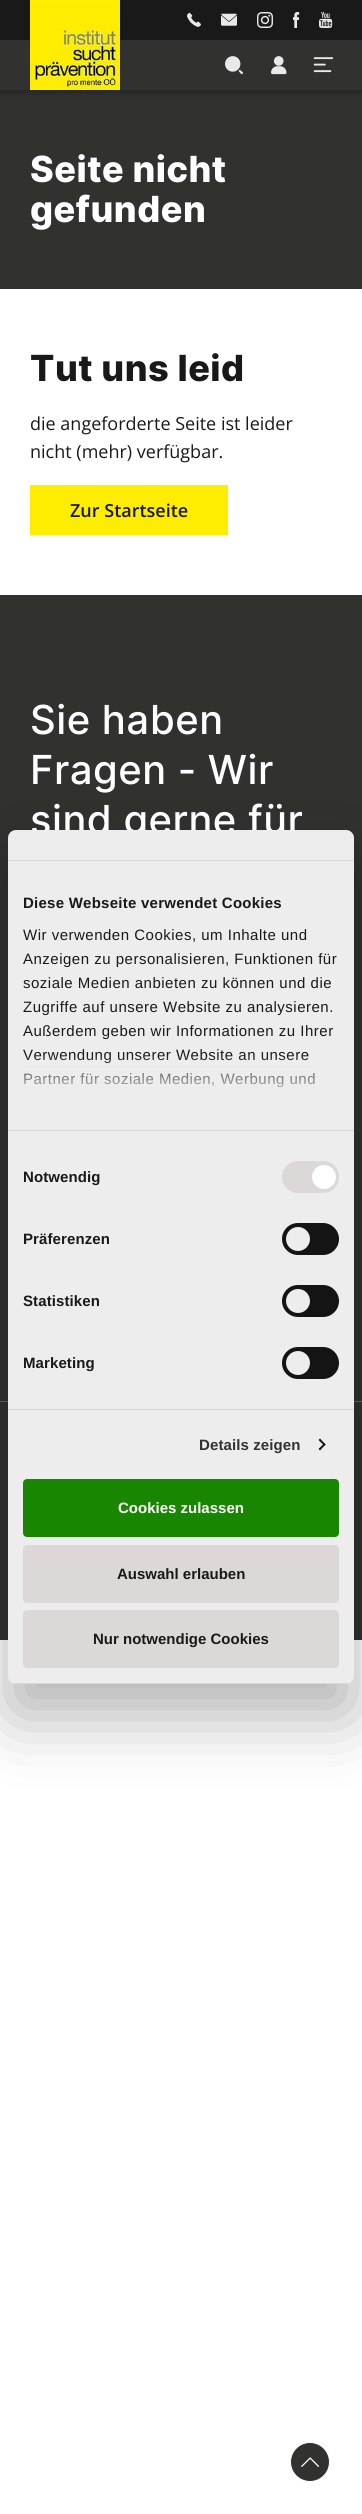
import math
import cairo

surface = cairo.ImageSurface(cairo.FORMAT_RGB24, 362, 2514)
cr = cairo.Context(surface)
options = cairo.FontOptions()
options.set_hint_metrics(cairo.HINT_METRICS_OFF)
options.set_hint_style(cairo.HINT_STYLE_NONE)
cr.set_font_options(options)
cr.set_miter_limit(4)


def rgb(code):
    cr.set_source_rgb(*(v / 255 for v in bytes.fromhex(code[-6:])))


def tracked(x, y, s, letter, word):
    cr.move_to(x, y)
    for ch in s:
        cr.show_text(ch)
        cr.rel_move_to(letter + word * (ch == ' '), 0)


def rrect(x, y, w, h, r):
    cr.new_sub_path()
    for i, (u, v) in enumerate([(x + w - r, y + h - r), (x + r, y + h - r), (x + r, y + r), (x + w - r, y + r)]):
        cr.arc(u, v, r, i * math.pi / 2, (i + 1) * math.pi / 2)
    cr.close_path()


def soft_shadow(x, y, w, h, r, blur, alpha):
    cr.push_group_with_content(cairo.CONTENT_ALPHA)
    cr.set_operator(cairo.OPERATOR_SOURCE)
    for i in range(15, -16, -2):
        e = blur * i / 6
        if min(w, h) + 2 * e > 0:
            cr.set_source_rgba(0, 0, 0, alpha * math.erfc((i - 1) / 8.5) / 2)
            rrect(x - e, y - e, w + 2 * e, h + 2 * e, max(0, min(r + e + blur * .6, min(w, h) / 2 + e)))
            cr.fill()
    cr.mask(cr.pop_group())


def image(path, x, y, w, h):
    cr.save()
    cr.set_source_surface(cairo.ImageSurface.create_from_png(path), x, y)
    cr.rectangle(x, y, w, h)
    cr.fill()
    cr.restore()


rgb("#ffffff")
cr.paint()
rgb("#313130")
cr.rectangle(0, 90, 362, 199)
cr.fill()
rgb("#191919")
soft_shadow(0, 3, 362, 90, 0, 3, 0.5)
rgb("#191919")
cr.rectangle(0, 0, 362, 40)
cr.fill()
rgb("#313130")
cr.rectangle(0, 40, 362, 50)
cr.fill()
image("img/1.png", 30, 0, 90, 90)
image("img/2.png", 187, 12, 14, 15)
image("img/3.png", 221, 13, 16, 13)
image("img/4.png", 257, 12, 16, 16)
image("img/5.png", 293, 12, 7, 16)
image("img/6.png", 319, 12, 14, 16)
image("img/7.png", 225, 56, 18, 19)
image("img/8.png", 271, 56, 16, 19)
image("img/9.png", 313, 57, 21, 16)
for x, y, w, h, color in [
    (30, 485, 198, 50, "#ffed00"),
    (0, 595, 362, 806, "#313130"),
    (0, 1402, 362, 238, "#313130"),
    (0, 1401, 362, 1, "#646464"),
]:
    rgb(color)
    cr.rectangle(x, y, w, h)
    cr.fill()
rgb("#000000")
soft_shadow(8, 862, 346, 854, 8, 34, 0.3)
rgb("#313130")
cr.arc(310, 2462, 19.5, 0, 2 * math.pi)
cr.fill_preserve()
rgb("#ffffff")
cr.set_line_width(1)
cr.stroke()
image("img/10.png", 301, 2457, 19, 10)
cr.select_font_face("Inter ExtraBold")
cr.set_font_size(36)
tracked(30, 182, "Seite nicht", 0.5, 0)
tracked(30, 222, "gefunden", 0.5, 0)
rgb("#191919")
tracked(30, 381, "Tut uns leid", 0.5, 0)
cr.select_font_face("Open Sans")
cr.set_font_size(18)
cr.move_to(30, 430)
cr.show_text("die angeforderte Seite ist leider")
cr.move_to(30, 458)
cr.show_text("nicht (mehr) verfügbar.")
cr.select_font_face("Open Sans SemiBold")
cr.move_to(70, 517)
cr.show_text("Zur Startseite")
cr.select_font_face("Inter Medium")
cr.set_font_size(40)
rgb("#ffffff")
for x, y, s in [
    (30, 734, "Sie haben"),
    (30, 784, "Fragen - Wir"),
    (30, 834, "sind gerne für"),
]:
    tracked(x, y, s, 0.5, 0)
rgb("#ededed")
rrect(8, 830, 346, 854, 8)
cr.fill()
rgb("#ddd8d8")
cr.rectangle(8, 860, 346, 1)
cr.fill()
cr.rectangle(8, 1130, 346, 1)
cr.fill()
cr.select_font_face("Liberation Sans", cairo.FONT_SLANT_NORMAL, cairo.FONT_WEIGHT_BOLD)
cr.set_font_size(15)
rgb("#191919")
tracked(23, 908, "Diese Webseite verwendet Cookies", 0.25, 0)
cr.select_font_face("Liberation Sans")
for x, y, s in [
    (23, 940, "Wir verwenden Cookies, um Inhalte und"),
    (23, 964, "Anzeigen zu personalisieren, Funktionen für"),
    (23, 988, "soziale Medien anbieten zu können und die"),
    (23, 1012, "Zugriffe auf unsere Website zu analysieren."),
    (23, 1036, "Außerdem geben wir Informationen zu Ihrer"),
    (23, 1060, "Verwendung unserer Website an unsere"),
    (23, 1084, "Partner für soziale Medien, Werbung und"),
]:
    tracked(x, y, s, 0.5, 0)
gradient = cairo.LinearGradient(175, 1130, 175, 1055)
gradient.add_color_stop_rgba(0, 0.929, 0.929, 0.929, 1)
gradient.add_color_stop_rgba(0.5, 0.929, 0.929, 0.929, 0.8)
gradient.add_color_stop_rgba(1, 0.929, 0.929, 0.929, 0)
cr.set_source(gradient)
cr.rectangle(24, 1056, 291, 32)
cr.fill()
rgb("#ddd8d8")
cr.rectangle(8, 1409, 346, 1)
cr.fill()
cr.select_font_face("Liberation Sans", cairo.FONT_SLANT_NORMAL, cairo.FONT_WEIGHT_BOLD)
rgb("#191919")
tracked(23, 1182, "Notwendig", 0.1, 0)
rgb("#ddd8d8")
rrect(282, 1161, 57, 32, 16)
cr.fill()
rgb("#ffffff")
cr.arc(324, 1177, 12, 0, 2 * math.pi)
cr.fill()
rgb("#191919")
tracked(23, 1244, "Präferenzen", 0.1, 0)
rgb("#141414")
rrect(282, 1223, 57, 32, 16)
cr.fill()
rgb("#ededed")
cr.arc(298, 1239, 12, 0, 2 * math.pi)
cr.fill()
rgb("#191919")
tracked(23, 1306, "Statistiken", 0.1, 0)
rgb("#141414")
rrect(282, 1285, 57, 32, 16)
cr.fill()
rgb("#ededed")
cr.arc(298, 1301, 12, 0, 2 * math.pi)
cr.fill()
rgb("#191919")
tracked(23, 1368, "Marketing", 0.1, 0)
rgb("#141414")
rrect(282, 1347, 57, 32, 16)
cr.fill()
rgb("#ededed")
cr.arc(298, 1363, 12, 0, 2 * math.pi)
cr.fill()
rgb("#333333")
tracked(199, 1450, "Details zeigen", 0.1, 0)
rgb("#141414")
cr.new_path()
cr.move_to(320, 1438.5)
cr.line_to(325.5, 1444.5)
cr.line_to(324.5, 1446)
cr.line_to(318.5, 1440)
cr.close_path()
cr.fill()
cr.new_path()
cr.move_to(324.5, 1443)
cr.line_to(325.5, 1444.5)
cr.line_to(320, 1450.5)
cr.line_to(318.5, 1449)
cr.close_path()
cr.fill()
cr.save()
rrect(8, 830, 346, 854, 8)
cr.clip()
rgb("#ddd8d8")
cr.rectangle(8, 1683, 346, 1)
cr.fill()
cr.restore()
rgb("#188600")
rrect(24, 1480, 314, 56, 3)
cr.fill_preserve()
cr.set_line_width(2)
cr.stroke()
rgb("#ffffff")
cr.move_to(118, 1513)
cr.show_text("Cookies zulassen")
rgb("#ddd8d8")
rrect(24, 1546, 314, 56, 3)
cr.fill_preserve()
cr.stroke()
rgb("#191919")
cr.move_to(117, 1579)
cr.show_text("Auswahl erlauben")
rgb("#ddd8d8")
rrect(24, 1611, 314, 56, 3)
cr.fill_preserve()
cr.stroke()
rgb("#191919")
cr.move_to(93, 1644)
cr.show_text("Nur notwendige Cookies")
surface.write_to_png("page.png")
